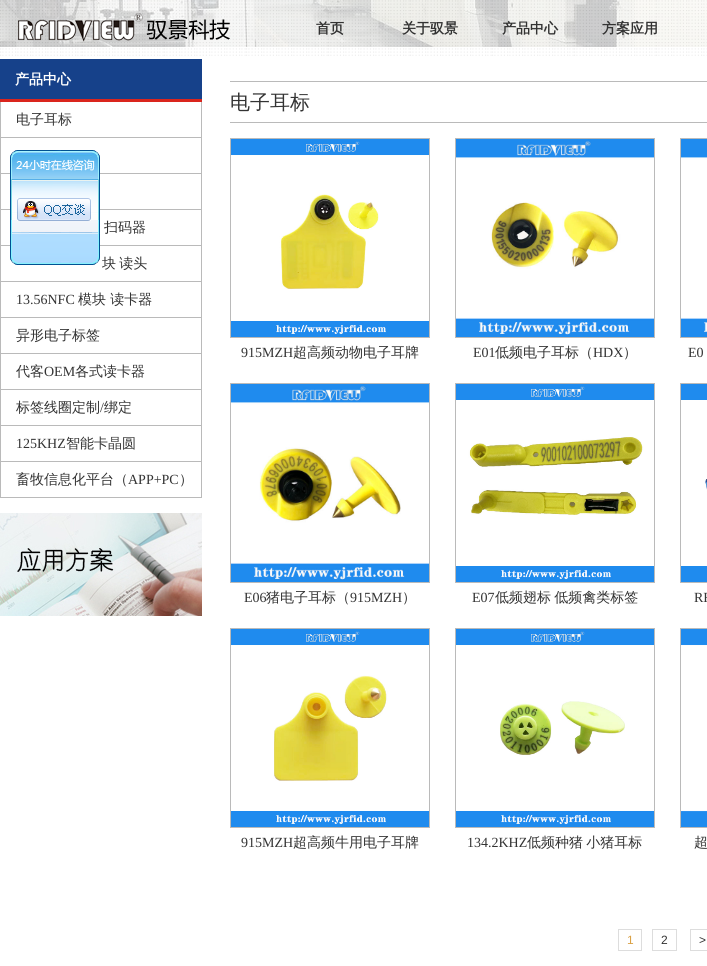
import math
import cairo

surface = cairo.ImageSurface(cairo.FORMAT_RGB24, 707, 966)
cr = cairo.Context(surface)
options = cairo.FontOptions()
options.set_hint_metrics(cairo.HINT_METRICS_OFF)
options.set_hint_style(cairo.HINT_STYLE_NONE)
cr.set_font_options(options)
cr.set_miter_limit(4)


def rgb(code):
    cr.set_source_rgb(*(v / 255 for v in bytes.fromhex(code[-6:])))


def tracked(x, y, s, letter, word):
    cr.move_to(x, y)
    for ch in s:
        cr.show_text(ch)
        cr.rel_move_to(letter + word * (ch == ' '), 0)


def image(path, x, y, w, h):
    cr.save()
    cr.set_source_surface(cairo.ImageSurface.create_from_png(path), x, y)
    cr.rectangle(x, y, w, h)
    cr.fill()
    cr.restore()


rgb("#ffffff")
cr.paint()
image("img/1.png", 0, 0, 707, 47)
image("img/2.png", 0, 0, 707, 56)
image("img/3.png", 18, 13, 212, 29)
for x, y, w, h, color in [
    (0, 59, 202, 40, "#16418a"),
    (0, 99, 202, 3, "#da251d"),
    (201, 102, 1, 396, "#bababa"),
    (0, 102, 1, 396, "#bababa"),
    (1, 137, 200, 1, "#bababa"),
    (1, 173, 200, 1, "#bababa"),
    (1, 209, 200, 1, "#bababa"),
    (1, 245, 200, 1, "#bababa"),
    (1, 281, 200, 1, "#bababa"),
    (1, 317, 200, 1, "#bababa"),
    (1, 353, 200, 1, "#bababa"),
    (1, 389, 200, 1, "#bababa"),
    (1, 425, 200, 1, "#bababa"),
    (1, 461, 200, 1, "#bababa"),
    (1, 497, 200, 1, "#bababa"),
]:
    rgb(color)
    cr.rectangle(x, y, w, h)
    cr.fill()
image("img/4.png", 0, 513, 202, 103)
cr.rectangle(230, 81, 477, 1)
cr.fill()
cr.rectangle(230, 122, 477, 1)
cr.fill()
cr.rectangle(230.5, 138.5, 199, 199)
cr.set_line_width(1)
cr.stroke()
image("img/5.png", 231, 139, 198, 198)
cr.rectangle(455.5, 138.5, 199, 199)
cr.stroke()
image("img/6.png", 456, 139, 198, 198)
cr.rectangle(680.5, 138.5, 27, 199)
cr.stroke()
image("img/7.png", 681, 139, 26, 198)
cr.rectangle(230.5, 383.5, 199, 199)
cr.stroke()
image("img/8.png", 231, 384, 198, 198)
cr.rectangle(455.5, 383.5, 199, 199)
cr.stroke()
image("img/9.png", 456, 384, 198, 198)
cr.rectangle(680.5, 383.5, 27, 199)
cr.stroke()
image("img/10.png", 681, 384, 26, 198)
cr.rectangle(230.5, 628.5, 199, 199)
cr.stroke()
image("img/11.png", 231, 629, 198, 198)
cr.rectangle(455.5, 628.5, 199, 199)
cr.stroke()
image("img/12.png", 456, 629, 198, 198)
cr.rectangle(680.5, 628.5, 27, 199)
cr.stroke()
image("img/13.png", 681, 629, 26, 198)
cr.rectangle(618.5, 929.5, 23, 21)
rgb("#dddddd")
cr.stroke()
cr.rectangle(652.5, 929.5, 24, 21)
cr.stroke()
cr.rectangle(690.5, 929.5, 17, 21)
cr.stroke()
image("img/14.png", 10, 150, 90, 115)
cr.select_font_face("WenQuanYi Zen Hei", cairo.FONT_SLANT_NORMAL, cairo.FONT_WEIGHT_BOLD)
cr.set_font_size(14)
rgb("#333333")
for x, y, s in [
    (316, 33, "首页"),
    (402, 33, "关于驭景"),
    (502, 33, "产品中心"),
    (602, 33, "方案应用"),
]:
    cr.move_to(x, y)
    cr.show_text(s)
rgb("#ffffff")
cr.move_to(15, 84)
cr.show_text("产品中心")
cr.select_font_face("WenQuanYi Zen Hei Medium")
rgb("#333333")
cr.move_to(16, 124)
cr.show_text("电子耳标")
cr.move_to(104, 232)
cr.show_text("扫码器")
tracked(102, 268, "块 读头", 0, -1)
cr.select_font_face("Liberation Serif")
cr.move_to(16, 304)
cr.show_text("13.56NFC")
cr.select_font_face("WenQuanYi Zen Hei Medium")
for x, y, s in [
    (78, 304, "模块 读卡器"),
    (16, 340, "异形电子标签"),
    (16, 376, "代客"),
]:
    cr.move_to(x, y)
    cr.show_text(s)
cr.select_font_face("Liberation Serif")
cr.move_to(44, 376)
cr.show_text("OEM")
cr.select_font_face("WenQuanYi Zen Hei Medium")
cr.move_to(75, 376)
cr.show_text("各式读卡器")
cr.move_to(16, 412)
cr.show_text("标签线圈定制")
cr.select_font_face("Liberation Serif")
cr.move_to(100, 412)
cr.show_text("/")
cr.select_font_face("WenQuanYi Zen Hei Medium")
cr.move_to(104, 412)
cr.show_text("绑定")
cr.select_font_face("Liberation Serif")
cr.move_to(16, 448)
cr.show_text("125KHZ")
cr.select_font_face("WenQuanYi Zen Hei Medium")
cr.move_to(66, 448)
cr.show_text("智能卡晶圆")
cr.move_to(16, 484)
cr.show_text("畜牧信息化平台（")
cr.select_font_face("Liberation Serif")
cr.move_to(128, 484)
cr.show_text("APP+PC")
cr.select_font_face("WenQuanYi Zen Hei Medium")
cr.move_to(179, 484)
cr.show_text("）")
cr.set_font_size(20)
cr.move_to(230, 109)
cr.show_text("电子耳标")
cr.select_font_face("Liberation Serif")
cr.set_font_size(14)
cr.move_to(241, 357)
cr.show_text("915MZH")
cr.select_font_face("WenQuanYi Zen Hei Medium")
cr.move_to(293, 357)
cr.show_text("超高频动物电子耳牌")
cr.select_font_face("Liberation Serif")
cr.move_to(473, 357)
cr.show_text("E01")
cr.select_font_face("WenQuanYi Zen Hei Medium")
cr.move_to(495, 357)
cr.show_text("低频电子耳标（")
cr.select_font_face("Liberation Serif")
cr.move_to(593, 357)
cr.show_text("HDX")
cr.select_font_face("WenQuanYi Zen Hei Medium")
cr.move_to(623, 357)
cr.show_text("）")
cr.select_font_face("Liberation Serif")
cr.move_to(688, 357)
cr.show_text("E0")
cr.move_to(244, 602)
cr.show_text("E06")
cr.select_font_face("WenQuanYi Zen Hei Medium")
cr.move_to(266, 602)
cr.show_text("猪电子耳标（")
cr.select_font_face("Liberation Serif")
cr.move_to(350, 602)
cr.show_text("915MZH")
cr.select_font_face("WenQuanYi Zen Hei Medium")
cr.move_to(402, 602)
cr.show_text("）")
cr.select_font_face("Liberation Serif")
cr.move_to(472, 602)
cr.show_text("E07")
cr.select_font_face("WenQuanYi Zen Hei Medium")
tracked(495, 602, "低频翅标 低频禽类标签", 0, -1)
cr.select_font_face("Liberation Serif")
cr.move_to(694, 602)
cr.show_text("RF")
cr.move_to(241, 847)
cr.show_text("915MZH")
cr.select_font_face("WenQuanYi Zen Hei Medium")
cr.move_to(293, 847)
cr.show_text("超高频牛用电子耳牌")
cr.select_font_face("Liberation Serif")
cr.move_to(467, 847)
cr.show_text("134.2KHZ")
cr.select_font_face("WenQuanYi Zen Hei Medium")
tracked(527, 847, "低频种猪 小猪耳标", 0, -1)
cr.move_to(694, 847)
cr.show_text("超")
cr.select_font_face("Liberation Sans")
cr.set_font_size(12)
rgb("#daa145")
cr.move_to(627, 944)
cr.show_text("1")
rgb("#333333")
cr.move_to(661, 944)
cr.show_text("2")
cr.move_to(699, 944)
cr.show_text(">")
surface.write_to_png("page.png")
